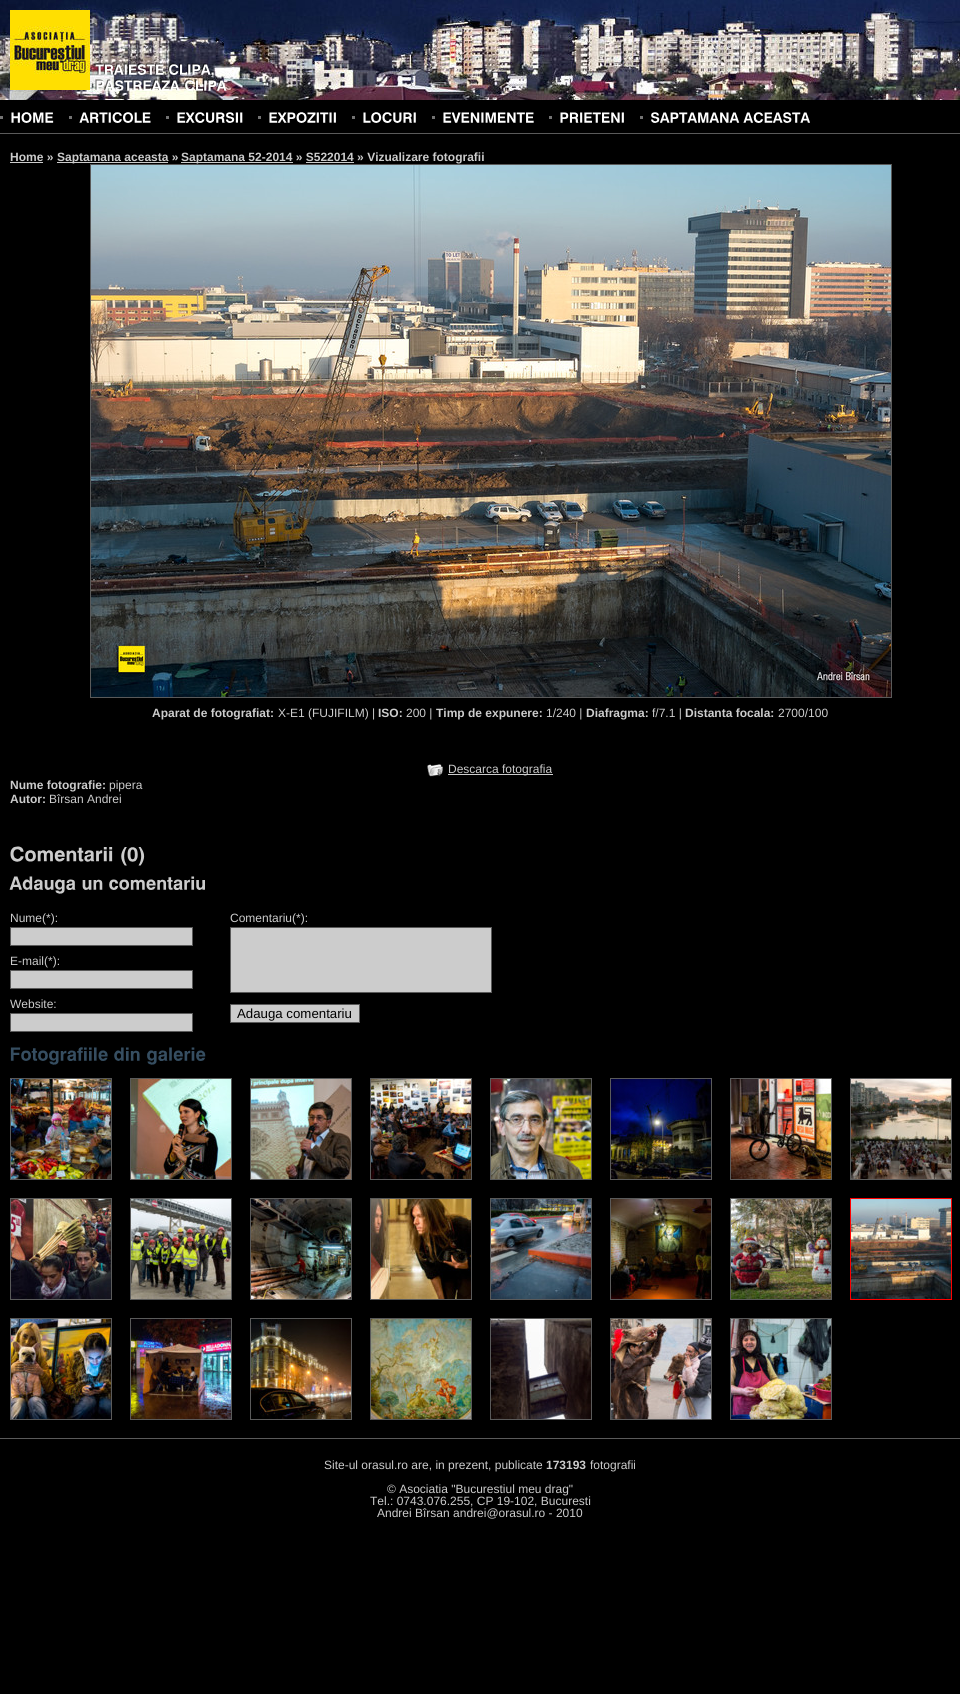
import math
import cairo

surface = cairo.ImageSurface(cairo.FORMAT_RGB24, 960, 1694)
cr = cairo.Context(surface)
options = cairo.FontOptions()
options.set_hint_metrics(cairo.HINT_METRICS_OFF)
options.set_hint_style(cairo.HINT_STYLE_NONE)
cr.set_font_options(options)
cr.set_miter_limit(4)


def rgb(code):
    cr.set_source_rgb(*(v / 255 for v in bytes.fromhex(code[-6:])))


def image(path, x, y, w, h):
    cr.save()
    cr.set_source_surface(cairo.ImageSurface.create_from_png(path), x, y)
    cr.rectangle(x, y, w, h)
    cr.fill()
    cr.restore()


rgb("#000000")
cr.paint()
image("img/1.png", 0, 0, 960, 100)
image("img/2.png", 10, 10, 80, 80)
image("img/3.png", 94, 63, 70, 12)
image("img/4.png", 168, 63, 46, 14)
image("img/5.png", 95, 79, 85, 12)
image("img/6.png", 184, 79, 43, 12)
rgb("#5a5a5a")
cr.rectangle(0, 133, 960, 1)
cr.fill()
rgb("#737373")
cr.rectangle(0, 116, 3, 3)
cr.fill()
image("img/7.png", 11, 112, 43, 11)
cr.rectangle(69, 116, 3, 3)
cr.fill()
image("img/8.png", 79, 112, 72, 11)
cr.rectangle(166, 116, 3, 3)
cr.fill()
image("img/9.png", 177, 112, 66, 11)
cr.rectangle(258, 116, 3, 3)
cr.fill()
image("img/10.png", 269, 112, 67, 11)
cr.rectangle(352, 116, 3, 3)
cr.fill()
image("img/11.png", 363, 112, 53, 11)
cr.rectangle(432, 116, 3, 3)
cr.fill()
image("img/12.png", 443, 112, 91, 11)
cr.rectangle(549, 116, 3, 3)
cr.fill()
image("img/13.png", 560, 112, 64, 11)
cr.rectangle(640, 116, 3, 3)
cr.fill()
image("img/14.png", 651, 112, 89, 11)
image("img/15.png", 743, 112, 67, 11)
for x, y, w, h, color in [
    (10, 162, 33, 1, "#cccccc"),
    (57, 162, 111, 1, "#cccccc"),
    (181, 162, 112, 1, "#cccccc"),
    (306, 162, 48, 1, "#cccccc"),
]:
    rgb(color)
    cr.rectangle(x, y, w, h)
    cr.fill()
cr.rectangle(90.5, 164.5, 801, 533)
rgb("#5a5a5a")
cr.set_line_width(1)
cr.stroke()
image("img/16.png", 91, 165, 800, 532)
image("img/17.png", 427, 764, 16, 13)
rgb("#cccccc")
cr.rectangle(448, 774, 105, 1)
cr.fill()
image("img/18.png", 10, 846, 103, 16)
image("img/19.png", 121, 847, 24, 19)
image("img/20.png", 9, 876, 67, 18)
image("img/21.png", 82, 879, 21, 11)
image("img/22.png", 109, 876, 96, 14)
cr.rectangle(10.5, 927.5, 182, 18)
cr.fill_preserve()
rgb("#5a5a5a")
cr.stroke()
rgb("#cccccc")
cr.rectangle(10.5, 970.5, 182, 18)
cr.fill_preserve()
rgb("#5a5a5a")
cr.stroke()
rgb("#cccccc")
cr.rectangle(10.5, 1013.5, 182, 18)
cr.fill_preserve()
rgb("#5a5a5a")
cr.stroke()
rgb("#cccccc")
cr.rectangle(230.5, 927.5, 261, 65)
cr.fill_preserve()
rgb("#5a5a5a")
cr.stroke()
rgb("#cccccc")
cr.rectangle(230.5, 1004.5, 129, 18)
cr.fill_preserve()
rgb("#5a5a5a")
cr.stroke()
image("img/23.png", 10, 1047, 98, 18)
image("img/24.png", 114, 1047, 26, 14)
image("img/25.png", 147, 1047, 59, 18)
cr.rectangle(10.5, 1078.5, 101, 101)
cr.stroke()
image("img/26.png", 11, 1079, 100, 100)
cr.rectangle(130.5, 1078.5, 101, 101)
cr.stroke()
image("img/27.png", 131, 1079, 100, 100)
cr.rectangle(250.5, 1078.5, 101, 101)
cr.stroke()
image("img/28.png", 251, 1079, 100, 100)
cr.rectangle(370.5, 1078.5, 101, 101)
cr.stroke()
image("img/29.png", 371, 1079, 100, 100)
cr.rectangle(490.5, 1078.5, 101, 101)
cr.stroke()
image("img/30.png", 491, 1079, 100, 100)
cr.rectangle(610.5, 1078.5, 101, 101)
cr.stroke()
image("img/31.png", 611, 1079, 100, 100)
cr.rectangle(730.5, 1078.5, 101, 101)
cr.stroke()
image("img/32.png", 731, 1079, 100, 100)
cr.rectangle(850.5, 1078.5, 101, 101)
cr.stroke()
image("img/33.png", 851, 1079, 100, 100)
cr.rectangle(10.5, 1198.5, 101, 101)
cr.stroke()
image("img/34.png", 11, 1199, 100, 100)
cr.rectangle(130.5, 1198.5, 101, 101)
cr.stroke()
image("img/35.png", 131, 1199, 100, 100)
cr.rectangle(250.5, 1198.5, 101, 101)
cr.stroke()
image("img/36.png", 251, 1199, 100, 100)
cr.rectangle(370.5, 1198.5, 101, 101)
cr.stroke()
image("img/37.png", 371, 1199, 100, 100)
cr.rectangle(490.5, 1198.5, 101, 101)
cr.stroke()
image("img/38.png", 491, 1199, 100, 100)
cr.rectangle(610.5, 1198.5, 101, 101)
cr.stroke()
image("img/39.png", 611, 1199, 100, 100)
cr.rectangle(730.5, 1198.5, 101, 101)
cr.stroke()
image("img/40.png", 731, 1199, 100, 100)
cr.rectangle(850.5, 1198.5, 101, 101)
rgb("#ff0000")
cr.stroke()
image("img/41.png", 851, 1199, 100, 100)
cr.rectangle(10.5, 1318.5, 101, 101)
rgb("#5a5a5a")
cr.stroke()
image("img/42.png", 11, 1319, 100, 100)
cr.rectangle(130.5, 1318.5, 101, 101)
cr.stroke()
image("img/43.png", 131, 1319, 100, 100)
cr.rectangle(250.5, 1318.5, 101, 101)
cr.stroke()
image("img/44.png", 251, 1319, 100, 100)
cr.rectangle(370.5, 1318.5, 101, 101)
cr.stroke()
image("img/45.png", 371, 1319, 100, 100)
cr.rectangle(490.5, 1318.5, 101, 101)
cr.stroke()
image("img/46.png", 491, 1319, 100, 100)
cr.rectangle(610.5, 1318.5, 101, 101)
cr.stroke()
image("img/47.png", 611, 1319, 100, 100)
cr.rectangle(730.5, 1318.5, 101, 101)
cr.stroke()
image("img/48.png", 731, 1319, 100, 100)
cr.rectangle(0, 1438, 960, 1)
cr.fill()
cr.select_font_face("Liberation Sans", cairo.FONT_SLANT_NORMAL, cairo.FONT_WEIGHT_BOLD)
cr.set_font_size(12)
rgb("#cccccc")
for x, y, s in [
    (10, 161, "Home »"),
    (57, 161, "Saptamana aceasta »"),
    (181, 161, "Saptamana 52-2014 » S522014 » Vizualizare fotografii"),
    (152, 717, "Aparat de fotografiat:"),
]:
    cr.move_to(x, y)
    cr.show_text(s)
cr.select_font_face("Liberation Sans")
cr.move_to(278, 717)
cr.show_text("X-E1 (FUJIFILM) |")
cr.select_font_face("Liberation Sans", cairo.FONT_SLANT_NORMAL, cairo.FONT_WEIGHT_BOLD)
cr.move_to(378, 717)
cr.show_text("ISO:")
cr.select_font_face("Liberation Sans")
cr.move_to(406, 717)
cr.show_text("200 |")
cr.select_font_face("Liberation Sans", cairo.FONT_SLANT_NORMAL, cairo.FONT_WEIGHT_BOLD)
cr.move_to(436, 717)
cr.show_text("Timp de expunere:")
cr.select_font_face("Liberation Sans")
cr.move_to(546, 717)
cr.show_text("1/240 |")
cr.select_font_face("Liberation Sans", cairo.FONT_SLANT_NORMAL, cairo.FONT_WEIGHT_BOLD)
cr.move_to(586, 717)
cr.show_text("Diafragma:")
cr.select_font_face("Liberation Sans")
cr.move_to(652, 717)
cr.show_text("f/7.1 |")
cr.select_font_face("Liberation Sans", cairo.FONT_SLANT_NORMAL, cairo.FONT_WEIGHT_BOLD)
cr.move_to(685, 717)
cr.show_text("Distanta focala:")
cr.select_font_face("Liberation Sans")
cr.move_to(778, 717)
cr.show_text("2700/100")
cr.move_to(448, 773)
cr.show_text("Descarca fotografia")
cr.select_font_face("Liberation Sans", cairo.FONT_SLANT_NORMAL, cairo.FONT_WEIGHT_BOLD)
cr.move_to(10, 789)
cr.show_text("Nume fotografie:")
cr.select_font_face("Liberation Sans")
cr.move_to(109, 789)
cr.show_text("pipera")
cr.select_font_face("Liberation Sans", cairo.FONT_SLANT_NORMAL, cairo.FONT_WEIGHT_BOLD)
cr.move_to(10, 803)
cr.show_text("Autor:")
cr.select_font_face("Liberation Sans")
for x, y, s in [
    (49, 803, "Bîrsan Andrei"),
    (10, 922, "Nume(*):"),
    (10, 965, "E-mail(*):"),
    (10, 1008, "Website:"),
    (230, 922, "Comentariu(*):"),
]:
    cr.move_to(x, y)
    cr.show_text(s)
cr.set_font_size(13.25)
rgb("#000000")
cr.move_to(237, 1018)
cr.show_text("Adauga comentariu")
cr.set_font_size(12)
rgb("#cccccc")
cr.move_to(324, 1469)
cr.show_text("Site-ul orasul.ro are, in prezent, publicate")
cr.select_font_face("Liberation Sans", cairo.FONT_SLANT_NORMAL, cairo.FONT_WEIGHT_BOLD)
cr.move_to(546, 1469)
cr.show_text("173193")
cr.select_font_face("Liberation Sans")
for x, y, s in [
    (590, 1469, "fotografii"),
    (387, 1493, "© Asociatia \"Bucurestiul meu drag\""),
    (370, 1505, "Tel.: 0743.076.255, CP 19-102, Bucuresti"),
    (377, 1517, "Andrei Bîrsan andrei@orasul.ro - 2010"),
]:
    cr.move_to(x, y)
    cr.show_text(s)
surface.write_to_png("page.png")
